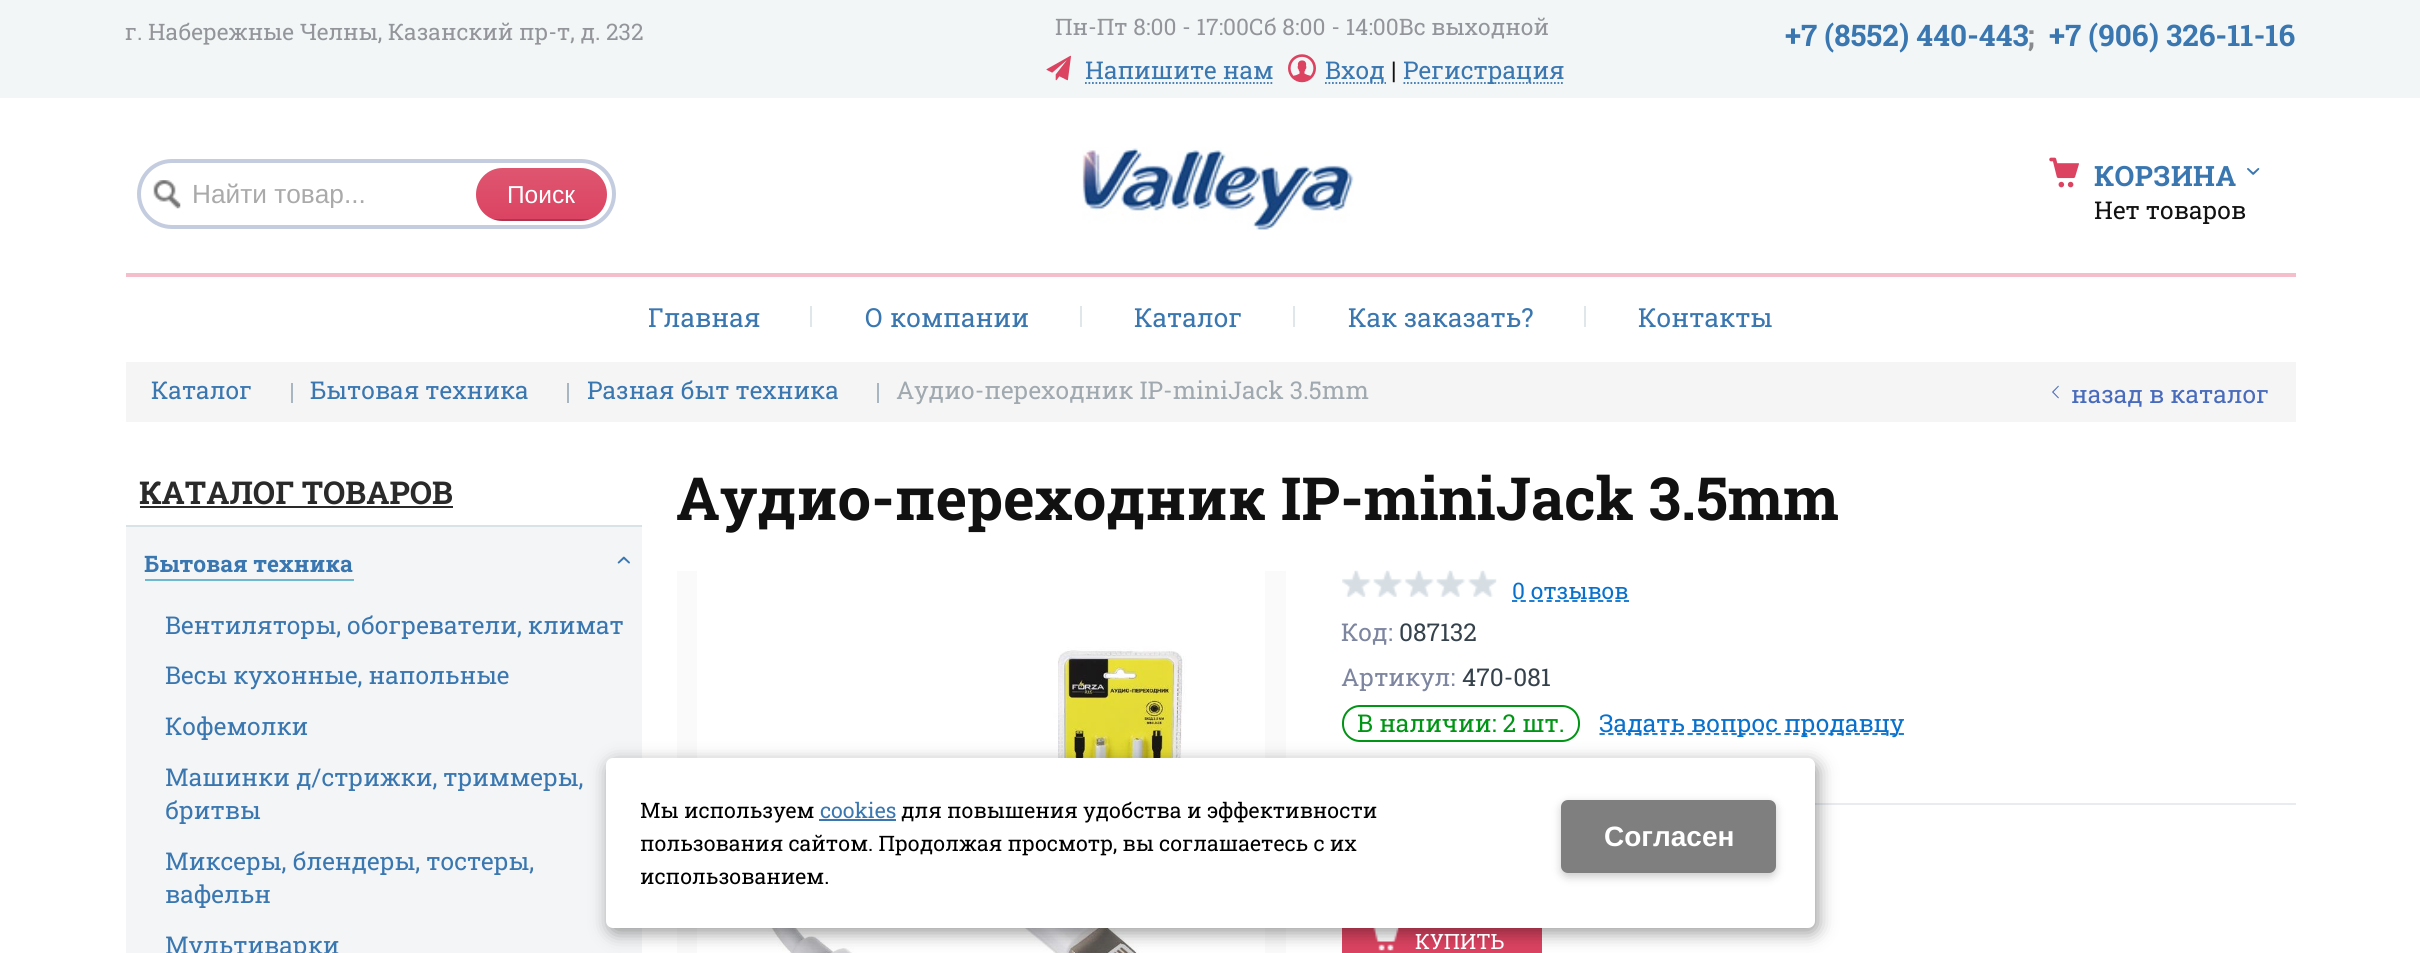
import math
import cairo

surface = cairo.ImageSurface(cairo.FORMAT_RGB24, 2420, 953)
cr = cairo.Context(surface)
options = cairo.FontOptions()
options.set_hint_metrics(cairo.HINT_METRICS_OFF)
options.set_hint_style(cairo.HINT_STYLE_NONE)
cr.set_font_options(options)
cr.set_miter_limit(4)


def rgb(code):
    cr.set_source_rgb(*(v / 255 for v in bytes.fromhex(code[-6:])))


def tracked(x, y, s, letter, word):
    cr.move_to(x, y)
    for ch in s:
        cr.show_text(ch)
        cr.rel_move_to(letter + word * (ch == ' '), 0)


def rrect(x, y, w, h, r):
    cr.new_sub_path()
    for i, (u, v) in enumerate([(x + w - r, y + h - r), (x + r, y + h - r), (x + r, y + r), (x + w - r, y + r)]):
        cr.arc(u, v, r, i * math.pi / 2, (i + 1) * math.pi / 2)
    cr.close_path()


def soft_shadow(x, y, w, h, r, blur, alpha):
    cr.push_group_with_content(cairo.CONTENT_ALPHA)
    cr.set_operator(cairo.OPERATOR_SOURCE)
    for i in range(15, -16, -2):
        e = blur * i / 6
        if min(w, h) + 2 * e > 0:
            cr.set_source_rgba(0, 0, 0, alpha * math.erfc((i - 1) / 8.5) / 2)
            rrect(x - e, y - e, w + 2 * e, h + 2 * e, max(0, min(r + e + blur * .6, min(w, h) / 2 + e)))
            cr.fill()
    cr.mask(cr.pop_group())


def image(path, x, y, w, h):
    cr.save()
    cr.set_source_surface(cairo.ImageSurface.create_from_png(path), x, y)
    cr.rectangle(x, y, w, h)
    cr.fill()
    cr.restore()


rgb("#ffffff")
cr.paint()
rgb("#f3f6f7")
cr.rectangle(0, 0, 2420, 98)
cr.fill()
image("img/1.png", 1046, 55, 25, 26)
cr.new_path()
cr.move_to(1085, 83)
cr.line_to(1274, 83)
rgb("#3a77b0")
cr.set_line_width(1.8)
cr.set_dash([1.75, 1.75])
cr.stroke()
image("img/2.png", 1288, 54, 28, 29)
cr.new_path()
cr.move_to(1325, 83)
cr.line_to(1386, 83)
cr.stroke()
cr.new_path()
cr.move_to(1403.5, 83)
cr.line_to(1564.5, 83)
cr.stroke()
rrect(139, 161, 475, 66, 33)
rgb("#c4ccdf")
cr.set_line_width(4)
cr.set_dash([])
cr.stroke()
image("img/3.png", 153, 180, 28, 29)
rgb("#db4361")
rrect(476, 168, 131, 53, 26.5)
cr.fill()
gradient = cairo.LinearGradient(542, 168, 542, 221)
gradient.add_color_stop_rgba(0, 1, 1, 1, 0.1)
gradient.add_color_stop_rgba(1, 1, 1, 1, 0)
cr.set_source(gradient)
rrect(476, 168, 131, 53, 26.5)
cr.fill()
cr.save()
rrect(476, 168, 131, 53, 26.5)
cr.clip()
cr.set_source_rgba(0, 0, 0, 0.2)
cr.rectangle(493, 219, 97, 2)
cr.fill()
cr.restore()
image("img/4.png", 1082, 147, 272, 83)
image("img/5.png", 2049, 157, 30, 31)
image("img/6.png", 2247, 168, 13, 7)
for x, y, w, h, color in [
    (126, 273, 2170, 4, "#f4becb"),
    (810, 306, 2, 21, "#dfe7eb"),
    (1080, 306, 2, 21, "#dfe7eb"),
    (1293, 306, 2, 21, "#dfe7eb"),
    (1584, 306, 2, 21, "#dfe7eb"),
    (126, 362, 2170, 60, "#f5f5f5"),
    (291, 383, 2, 20, "#a7b6c0"),
    (567, 383, 2, 20, "#a7b6c0"),
    (877, 383, 2, 20, "#a7b6c0"),
]:
    rgb(color)
    cr.rectangle(x, y, w, h)
    cr.fill()
image("img/7.png", 2052, 385, 7, 14)
for x, y, w, h, color in [
    (140, 506, 313, 2, "#2a2a2a"),
    (126, 527, 516, 426, "#f3f5f6"),
    (126, 525, 516, 2, "#d9e2e7"),
    (145, 579, 209, 2, "#70b7d0"),
]:
    rgb(color)
    cr.rectangle(x, y, w, h)
    cr.fill()
image("img/8.png", 617, 556, 13, 8)
rgb("#fafafb")
cr.rectangle(677, 571, 609, 382)
cr.fill()
image("img/9.png", 697, 571, 568, 382)
image("img/10.png", 1342, 570, 155, 27)
cr.new_path()
cr.move_to(1512, 601)
cr.line_to(1629, 601)
rgb("#0971cc")
cr.set_line_width(1.8)
cr.set_dash([5.25, 3.36])
cr.stroke()
rrect(1343, 706, 236, 35, 17)
rgb("#009514")
cr.set_line_width(2)
cr.set_dash([])
cr.stroke()
cr.new_path()
cr.move_to(1599.5, 734)
cr.line_to(1904, 734)
rgb("#0971cc")
cr.set_line_width(1.8)
cr.set_dash([5.25, 3.55])
cr.stroke()
rgb("#e8ecf0")
cr.rectangle(1815, 803, 481, 2)
cr.fill()
rgb("#db4361")
cr.rectangle(1342, 928, 200, 25)
cr.fill()
image("img/11.png", 1373, 928, 26, 23)
rgb("#000000")
soft_shadow(609, 763, 1209, 170, 7, 9, 0.4)
rgb("#ffffff")
rrect(606, 758, 1209, 170, 7)
cr.fill()
rgb("#3a77b0")
cr.rectangle(819, 819, 77, 2)
cr.fill()
rgb("#000000")
soft_shadow(1561, 803, 215, 74, 7, 4.5, 0.2)
rgb("#7f7f7f")
rrect(1561, 800, 215, 73, 7)
cr.fill()
cr.select_font_face("Roboto Slab")
cr.set_font_size(22.75)
rgb("#93959a")
cr.move_to(125, 40)
cr.show_text("г. Набережные Челны, Казанский пр-т, д. 232")
cr.move_to(1055, 35)
cr.show_text("Пн-Пт 8:00 - 17:00Сб 8:00 - 14:00Вс выходной")
cr.set_font_size(24.5)
rgb("#3a77b0")
cr.move_to(1085, 79)
cr.show_text("Напишите нам")
cr.move_to(1325, 79)
cr.show_text("Вход")
rgb("#111111")
cr.move_to(1391, 79)
cr.show_text("|")
rgb("#3a77b0")
cr.move_to(1403, 79)
cr.show_text("Регистрация")
cr.select_font_face("Roboto Slab", cairo.FONT_SLANT_NORMAL, cairo.FONT_WEIGHT_BOLD)
cr.set_font_size(29.75)
cr.move_to(1785, 46)
cr.show_text("+7 (8552) 440-443")
rgb("#898a8e")
cr.move_to(2028, 46)
cr.show_text(";")
rgb("#3a77b0")
cr.move_to(2049, 46)
cr.show_text("+7 (906) 326-11-16")
cr.save()
cr.rectangle(193, 179, 402, 29)
cr.clip()
cr.select_font_face("Liberation Sans")
cr.set_font_size(26.25)
rgb("#aaaaaa")
cr.move_to(192, 203)
cr.show_text("Найти товар...")
cr.restore()
cr.select_font_face("Liberation Sans")
cr.set_font_size(24.5)
rgb("#ffffff")
cr.move_to(507, 203)
cr.show_text("Поиск")
cr.select_font_face("Roboto Slab", cairo.FONT_SLANT_NORMAL, cairo.FONT_WEIGHT_BOLD)
cr.set_font_size(28)
rgb("#3a77b0")
tracked(2094, 186, "КОРЗИНА", 0.5, 0)
cr.select_font_face("Roboto Slab")
cr.set_font_size(24.5)
rgb("#111111")
cr.move_to(2094, 219)
cr.show_text("Нет товаров")
cr.set_font_size(26.25)
rgb("#3a77b0")
for x, y, s in [
    (648, 327, "Главная"),
    (865, 327, "О компании"),
    (1134, 327, "Каталог"),
    (1348, 327, "Как заказать?"),
    (1638, 327, "Контакты"),
]:
    cr.move_to(x, y)
    cr.show_text(s)
cr.set_font_size(24.5)
for x, y, s in [
    (151, 399, "Каталог"),
    (310, 399, "Бытовая техника"),
    (587, 399, "Разная быт техника"),
]:
    cr.move_to(x, y)
    cr.show_text(s)
rgb("#a0a9af")
cr.move_to(896, 399)
cr.show_text("Аудио-переходник IP-miniJack 3.5mm")
rgb("#496bbc")
cr.move_to(2071, 403)
cr.show_text("назад в каталог")
cr.select_font_face("Roboto Slab", cairo.FONT_SLANT_NORMAL, cairo.FONT_WEIGHT_BOLD)
cr.set_font_size(31.5)
rgb("#2a2a2a")
cr.move_to(139, 504)
cr.show_text("КАТАЛОГ ТОВАРОВ")
cr.set_font_size(22.75)
rgb("#3a77b0")
cr.move_to(144, 572)
cr.show_text("Бытовая техника")
cr.select_font_face("Roboto Slab")
cr.set_font_size(24.5)
for x, y, s in [
    (165, 634, "Вентиляторы, обогреватели, климат"),
    (165, 684, "Весы кухонные, напольные"),
    (165, 735, "Кофемолки"),
    (165, 786, "Машинки д/стрижки, триммеры,"),
    (165, 819, "бритвы"),
    (165, 870, "Миксеры, блендеры, тостеры,"),
    (165, 903, "вафельн"),
    (165, 954, "Мультиварки"),
]:
    cr.move_to(x, y)
    cr.show_text(s)
cr.select_font_face("Roboto Slab", cairo.FONT_SLANT_NORMAL, cairo.FONT_WEIGHT_BOLD)
cr.set_font_size(59.5)
rgb("#111111")
cr.move_to(676, 520)
cr.show_text("Аудио-переходник IP-miniJack 3.5mm")
cr.select_font_face("Roboto Slab")
cr.set_font_size(22.75)
rgb("#0971cc")
cr.move_to(1512, 599)
cr.show_text("0 отзывов")
cr.set_font_size(24.5)
rgb("#7d859f")
cr.move_to(1341, 641)
cr.show_text("Код:")
rgb("#35424b")
cr.move_to(1399, 641)
cr.show_text("087132")
rgb("#7d859f")
cr.move_to(1341, 686)
cr.show_text("Артикул:")
rgb("#35424b")
cr.move_to(1462, 686)
cr.show_text("470-081")
rgb("#009514")
cr.move_to(1357, 732)
cr.show_text("В наличии: 2 шт.")
rgb("#0971cc")
cr.move_to(1599, 732)
cr.show_text("Задать вопрос продавцу")
cr.set_font_size(21)
rgb("#ffffff")
cr.move_to(1415, 949)
cr.show_text("КУПИТЬ")
cr.set_font_size(21.3)
rgb("#000000")
cr.move_to(640, 818)
cr.show_text("Мы используем")
rgb("#3a77b0")
cr.move_to(820, 818)
cr.show_text("cookies")
rgb("#000000")
for x, y, s in [
    (901, 818, "для повышения удобства и эффективности"),
    (640, 851, "пользования сайтом. Продолжая просмотр, вы соглашаетесь с их"),
    (640, 884, "использованием."),
]:
    cr.move_to(x, y)
    cr.show_text(s)
cr.select_font_face("Liberation Sans", cairo.FONT_SLANT_NORMAL, cairo.FONT_WEIGHT_BOLD)
cr.set_font_size(28)
rgb("#ffffff")
cr.move_to(1604, 846)
cr.show_text("Cогласен")
surface.write_to_png("page.png")
